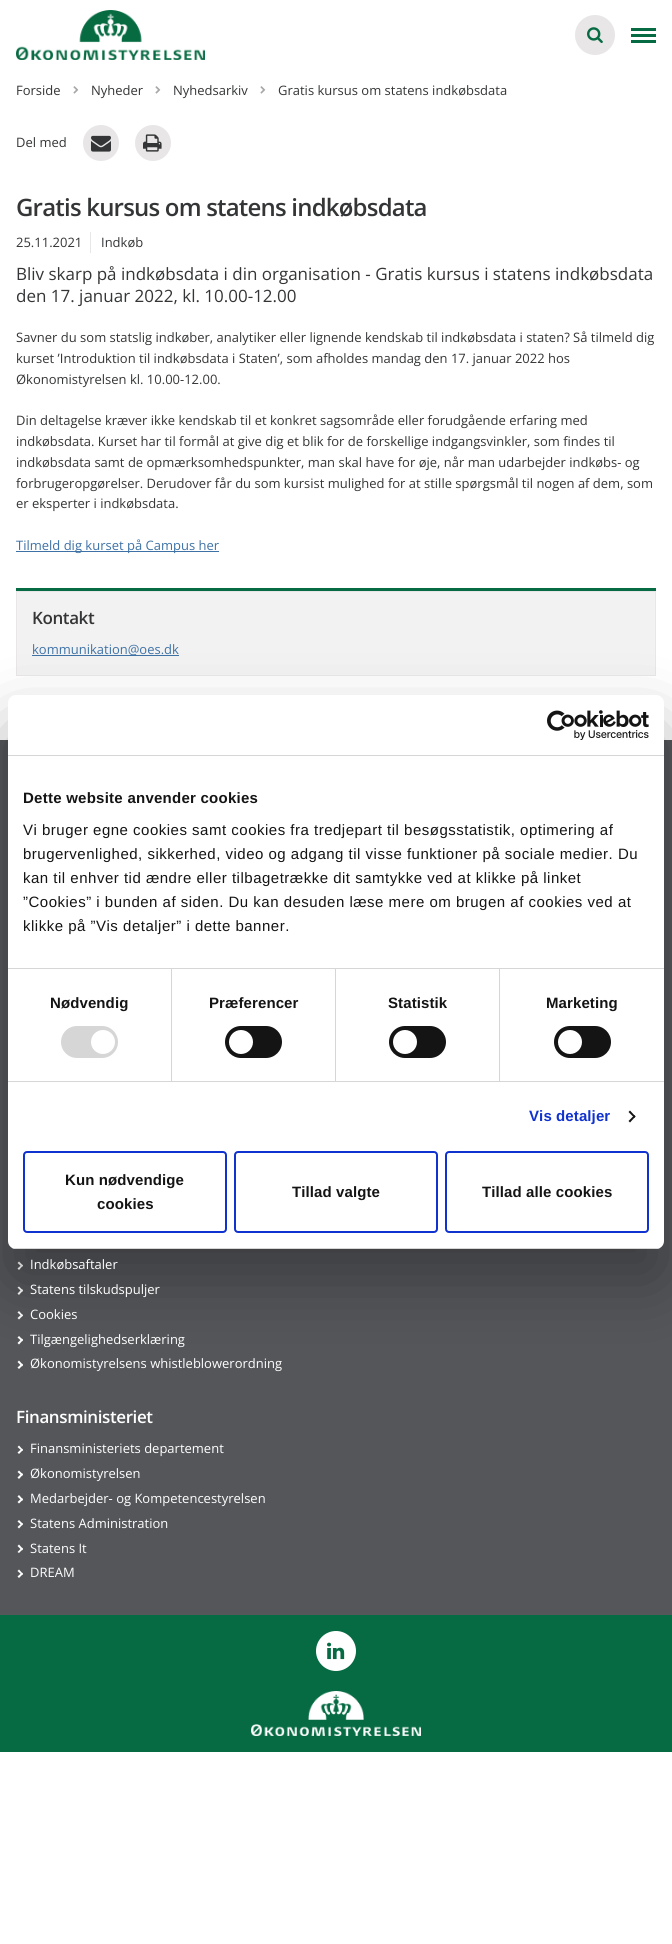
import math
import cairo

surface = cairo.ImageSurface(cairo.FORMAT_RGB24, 672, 1944)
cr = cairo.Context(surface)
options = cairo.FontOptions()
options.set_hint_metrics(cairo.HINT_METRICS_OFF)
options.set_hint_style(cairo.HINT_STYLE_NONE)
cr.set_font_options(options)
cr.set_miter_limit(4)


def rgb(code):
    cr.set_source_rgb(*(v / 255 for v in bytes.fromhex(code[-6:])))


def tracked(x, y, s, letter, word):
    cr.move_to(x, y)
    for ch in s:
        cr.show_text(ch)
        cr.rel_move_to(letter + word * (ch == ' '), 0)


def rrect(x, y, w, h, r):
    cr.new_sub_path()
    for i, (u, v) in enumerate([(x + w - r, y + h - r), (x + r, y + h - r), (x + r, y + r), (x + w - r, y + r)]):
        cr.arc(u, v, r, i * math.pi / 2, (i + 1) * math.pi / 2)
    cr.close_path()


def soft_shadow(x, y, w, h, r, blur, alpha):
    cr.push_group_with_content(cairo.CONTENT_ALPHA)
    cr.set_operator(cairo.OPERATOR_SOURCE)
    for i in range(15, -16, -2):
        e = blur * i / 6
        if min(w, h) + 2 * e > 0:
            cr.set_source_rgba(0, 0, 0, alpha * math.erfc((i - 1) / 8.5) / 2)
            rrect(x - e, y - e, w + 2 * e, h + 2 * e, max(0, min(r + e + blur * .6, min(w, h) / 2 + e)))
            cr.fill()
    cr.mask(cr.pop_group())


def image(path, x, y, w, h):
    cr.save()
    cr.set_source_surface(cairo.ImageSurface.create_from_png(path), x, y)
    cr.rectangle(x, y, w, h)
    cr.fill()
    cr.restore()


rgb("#ffffff")
cr.paint()
image("img/1.png", 16, 10, 189, 50)
rgb("#e8e6e6")
cr.arc(595, 35, 20, 0, 2 * math.pi)
cr.fill()
image("img/2.png", 587, 27, 16, 16)
for x, y, w, h, color in [
    (631, 34, 25, 3, "#066b43"),
    (631, 28, 25, 3, "#066b43"),
    (631, 40, 25, 3, "#066b43"),
]:
    rgb(color)
    cr.rectangle(x, y, w, h)
    cr.fill()
image("img/3.png", 73, 86, 6, 8)
image("img/3.png", 155, 86, 6, 8)
image("img/3.png", 260, 86, 6, 8)
rgb("#e8e6e6")
cr.arc(101, 143, 18, 0, 2 * math.pi)
cr.fill()
image("img/4.png", 91, 135, 20, 17)
cr.arc(153, 143, 18, 0, 2 * math.pi)
cr.fill()
image("img/5.png", 143, 134, 19, 18)
cr.rectangle(90, 232, 1, 21)
cr.fill()
rgb("#3e72a6")
cr.rectangle(16, 551, 203, 1)
cr.fill()
rgb("#f3f2f2")
cr.rectangle(16.5, 591.5, 639, 84)
cr.fill_preserve()
rgb("#e8e6e6")
cr.set_line_width(1)
cr.stroke()
for x, y, w, h, color in [
    (16, 588, 640, 3, "#066b43"),
    (32, 655, 147, 1, "#3e72a6"),
    (0, 740, 672, 875, "#55565a"),
]:
    rgb(color)
    cr.rectangle(x, y, w, h)
    cr.fill()
rgb("#ffffff")
cr.new_path()
cr.move_to(19, 1261.5)
cr.line_to(23, 1265.5)
cr.line_to(22, 1267)
cr.line_to(17.5, 1263)
cr.close_path()
cr.fill()
cr.new_path()
cr.move_to(22, 1264.5)
cr.line_to(23, 1265.5)
cr.line_to(19, 1270)
cr.line_to(17.5, 1268.5)
cr.close_path()
cr.fill()
cr.new_path()
cr.move_to(19, 1286.5)
cr.line_to(23, 1290.5)
cr.line_to(22, 1292)
cr.line_to(17.5, 1287.5)
cr.close_path()
cr.fill()
cr.new_path()
cr.move_to(22, 1289)
cr.line_to(23, 1290.5)
cr.line_to(19, 1295)
cr.line_to(17.5, 1293.5)
cr.close_path()
cr.fill()
cr.new_path()
cr.move_to(19, 1311)
cr.line_to(23, 1315.5)
cr.line_to(22, 1316.5)
cr.line_to(17.5, 1312.5)
cr.close_path()
cr.fill()
cr.new_path()
cr.move_to(22, 1314)
cr.line_to(23, 1315.5)
cr.line_to(19, 1319.5)
cr.line_to(17.5, 1318)
cr.close_path()
cr.fill()
cr.new_path()
cr.move_to(19, 1336)
cr.line_to(23, 1340)
cr.line_to(22, 1341.5)
cr.line_to(17.5, 1337.5)
cr.close_path()
cr.fill()
cr.new_path()
cr.move_to(22, 1338.5)
cr.line_to(23, 1340)
cr.line_to(19, 1344.5)
cr.line_to(17.5, 1343)
cr.close_path()
cr.fill()
cr.new_path()
cr.move_to(19, 1360.5)
cr.line_to(23, 1365)
cr.line_to(22, 1366.5)
cr.line_to(17.5, 1362)
cr.close_path()
cr.fill()
cr.new_path()
cr.move_to(22, 1363.5)
cr.line_to(23, 1365)
cr.line_to(19, 1369)
cr.line_to(17.5, 1367.5)
cr.close_path()
cr.fill()
rgb("#000000")
soft_shadow(8, 727, 656, 554, 8, 34, 0.3)
rgb("#ffffff")
rrect(8, 695, 656, 554, 8)
cr.fill()
rgb("#d6d6d6")
cr.rectangle(8, 755, 656, 1)
cr.fill()
image("img/6.png", 547, 710, 102, 30)
for x, y, w, h, color in [
    (8, 968, 656, 1, "#d6d6d6"),
    (8, 1081, 656, 1, "#d6d6d6"),
    (171, 969, 1, 112, "#d6d6d6"),
]:
    rgb(color)
    cr.rectangle(x, y, w, h)
    cr.fill()
rrect(61, 1026, 57, 32, 16)
cr.fill()
rgb("#ffffff")
cr.arc(103, 1042, 12, 0, 2 * math.pi)
cr.fill()
rgb("#d6d6d6")
cr.rectangle(335, 969, 1, 112)
cr.fill()
rgb("#141414")
rrect(225, 1026, 57, 32, 16)
cr.fill()
rgb("#ffffff")
cr.arc(241, 1042, 12, 0, 2 * math.pi)
cr.fill()
rgb("#d6d6d6")
cr.rectangle(499, 969, 1, 112)
cr.fill()
rgb("#141414")
rrect(389, 1026, 57, 32, 16)
cr.fill()
rgb("#ffffff")
cr.arc(405, 1042, 12, 0, 2 * math.pi)
cr.fill()
rgb("#141414")
rrect(554, 1026, 57, 32, 16)
cr.fill()
rgb("#ffffff")
cr.arc(570, 1042, 12, 0, 2 * math.pi)
cr.fill()
rgb("#141414")
cr.new_path()
cr.move_to(630, 1110.5)
cr.line_to(635.5, 1116.5)
cr.line_to(634.5, 1118)
cr.line_to(628.5, 1112)
cr.close_path()
cr.fill()
cr.new_path()
cr.move_to(634.5, 1115)
cr.line_to(635.5, 1116.5)
cr.line_to(630, 1122.5)
cr.line_to(628.5, 1121)
cr.close_path()
cr.fill()
cr.save()
rrect(8, 695, 656, 554, 8)
cr.clip()
rgb("#d6d6d6")
cr.rectangle(8, 1248, 656, 1)
cr.fill()
cr.restore()
rrect(24, 1152, 202, 80, 3)
rgb("#1032cf")
cr.set_line_width(2)
cr.stroke()
rrect(235, 1152, 202, 80, 3)
cr.stroke()
rrect(446, 1152, 202, 80, 3)
cr.stroke()
rgb("#ffffff")
cr.new_path()
cr.move_to(19, 1445.5)
cr.line_to(23, 1450)
cr.line_to(22, 1451)
cr.line_to(17.5, 1447)
cr.close_path()
cr.fill()
cr.new_path()
cr.move_to(22, 1448.5)
cr.line_to(23, 1450)
cr.line_to(19, 1454)
cr.line_to(17.5, 1452.5)
cr.close_path()
cr.fill()
cr.new_path()
cr.move_to(19, 1470.5)
cr.line_to(23, 1474.5)
cr.line_to(22, 1476)
cr.line_to(17.5, 1472)
cr.close_path()
cr.fill()
cr.new_path()
cr.move_to(22, 1473)
cr.line_to(23, 1474.5)
cr.line_to(19, 1479)
cr.line_to(17.5, 1477.5)
cr.close_path()
cr.fill()
cr.new_path()
cr.move_to(19, 1495)
cr.line_to(23, 1499.5)
cr.line_to(22, 1501)
cr.line_to(17.5, 1496.5)
cr.close_path()
cr.fill()
cr.new_path()
cr.move_to(22, 1498)
cr.line_to(23, 1499.5)
cr.line_to(19, 1503.5)
cr.line_to(17.5, 1502)
cr.close_path()
cr.fill()
cr.new_path()
cr.move_to(19, 1520)
cr.line_to(23, 1524)
cr.line_to(22, 1525.5)
cr.line_to(17.5, 1521.5)
cr.close_path()
cr.fill()
cr.new_path()
cr.move_to(22, 1523)
cr.line_to(23, 1524)
cr.line_to(19, 1528.5)
cr.line_to(17.5, 1527)
cr.close_path()
cr.fill()
cr.new_path()
cr.move_to(19, 1544.5)
cr.line_to(23, 1549)
cr.line_to(22, 1550.5)
cr.line_to(17.5, 1546)
cr.close_path()
cr.fill()
cr.new_path()
cr.move_to(22, 1547.5)
cr.line_to(23, 1549)
cr.line_to(19, 1553)
cr.line_to(17.5, 1552)
cr.close_path()
cr.fill()
cr.new_path()
cr.move_to(19, 1569.5)
cr.line_to(23, 1574)
cr.line_to(22, 1575)
cr.line_to(17.5, 1571)
cr.close_path()
cr.fill()
cr.new_path()
cr.move_to(22, 1572.5)
cr.line_to(23, 1574)
cr.line_to(19, 1578)
cr.line_to(17.5, 1576.5)
cr.close_path()
cr.fill()
rgb("#066b43")
cr.rectangle(0, 1615, 672, 137)
cr.fill()
rgb("#ffffff")
cr.arc(336, 1651, 20, 0, 2 * math.pi)
cr.fill()
image("img/7.png", 327, 1642, 18, 18)
image("img/8.png", 251, 1691, 170, 45)
cr.select_font_face("Open Sans")
cr.set_font_size(13)
rgb("#343536")
for x, y, s in [
    (16, 95, "Forside"),
    (91, 95, "Nyheder"),
    (173, 95, "Nyhedsarkiv"),
    (278, 95, "Gratis kursus om statens indkøbsdata"),
    (16, 147, "Del med"),
]:
    cr.move_to(x, y)
    cr.show_text(s)
cr.select_font_face("Open Sans SemiBold")
cr.set_font_size(24)
tracked(16, 216, "Gratis kursus om statens indkøbsdata", -0.8, 0)
cr.select_font_face("Open Sans")
cr.set_font_size(13)
cr.move_to(16, 247)
cr.show_text("25.11.2021")
cr.move_to(101, 247)
cr.show_text("Indkøb")
cr.set_font_size(17)
cr.move_to(16, 280)
cr.show_text("Bliv skarp på indkøbsdata i din organisation - Gratis kursus i statens indkøbsdata")
cr.move_to(16, 302)
cr.show_text("den 17. januar 2022, kl. 10.00-12.00")
cr.set_font_size(13)
for x, y, s in [
    (16, 342, "Savner du som statslig indkøber, analytiker eller lignende kendskab til indkøbsdata i staten? Så tilmeld dig"),
    (16, 363, "kurset ’Introduktion til indkøbsdata i Staten’, som afholdes mandag den 17. januar 2022 hos"),
    (16, 384, "Økonomistyrelsen kl. 10.00-12.00."),
    (16, 425, "Din deltagelse kræver ikke kendskab til et konkret sagsområde eller forudgående erfaring med"),
    (16, 446, "indkøbsdata. Kurset har til formål at give dig et blik for de forskellige indgangsvinkler, som findes til"),
    (16, 467, "indkøbsdata samt de opmærksomhedspunkter, man skal have for øje, når man udarbejder indkøbs- og"),
    (16, 488, "forbrugeropgørelser. Derudover får du som kursist mulighed for at stille spørgsmål til nogen af dem, som"),
    (16, 508, "er eksperter i indkøbsdata."),
]:
    cr.move_to(x, y)
    cr.show_text(s)
rgb("#3e72a6")
cr.move_to(16, 550)
cr.show_text("Tilmeld dig kurset på Campus her")
cr.select_font_face("Open Sans SemiBold")
cr.set_font_size(17)
rgb("#343536")
tracked(32, 624, "Kontakt", -0.4, 0)
cr.select_font_face("Open Sans")
cr.set_font_size(13)
rgb("#3e72a6")
cr.move_to(32, 654)
cr.show_text("kommunikation@oes.dk")
cr.select_font_face("Liberation Sans", cairo.FONT_SLANT_NORMAL, cairo.FONT_WEIGHT_BOLD)
cr.set_font_size(15)
rgb("#141414")
tracked(23, 803, "Dette website anvender cookies", 0.25, 0)
cr.select_font_face("Liberation Sans")
for x, y, s in [
    (23, 835, "Vi bruger egne cookies samt cookies fra tredjepart til besøgsstatistik, optimering af"),
    (23, 859, "brugervenlighed, sikkerhed, video og adgang til visse funktioner på sociale medier. Du"),
    (23, 883, "kan til enhver tid ændre eller tilbagetrække dit samtykke ved at klikke på linket"),
    (23, 907, "”Cookies” i bunden af siden. Du kan desuden læse mere om brugen af cookies ved at"),
    (23, 931, "klikke på ”Vis detaljer” i dette banner."),
]:
    tracked(x, y, s, 0.5, 0)
cr.select_font_face("Liberation Sans", cairo.FONT_SLANT_NORMAL, cairo.FONT_WEIGHT_BOLD)
for x, y, s in [
    (50, 1008, "Nødvendig"),
    (209, 1008, "Præferencer"),
    (388, 1008, "Statistik"),
    (546, 1008, "Marketing"),
]:
    tracked(x, y, s, 0.1, 0)
rgb("#1032cf")
tracked(529, 1121, "Vis detaljer", 0.1, 0)
rgb("#141414")
for x, y, s in [
    (65, 1185, "Kun nødvendige"),
    (97, 1209, "cookies"),
    (292, 1197, "Tillad valgte"),
    (482, 1197, "Tillad alle cookies"),
]:
    tracked(x, y, s, 0.1, 0)
cr.select_font_face("Open Sans")
cr.set_font_size(13)
rgb("#ffffff")
for x, y, s in [
    (30, 1269, "Indkøbsaftaler"),
    (30, 1294, "Statens tilskudspuljer"),
    (30, 1319, "Cookies"),
    (30, 1344, "Tilgængelighedserklæring"),
    (30, 1368, "Økonomistyrelsens whistleblowerordning"),
]:
    cr.move_to(x, y)
    cr.show_text(s)
cr.select_font_face("Open Sans SemiBold")
cr.set_font_size(17)
tracked(16, 1423, "Finansministeriet", -0.4, 0)
cr.select_font_face("Open Sans")
cr.set_font_size(13)
for x, y, s in [
    (30, 1453, "Finansministeriets departement"),
    (30, 1478, "Økonomistyrelsen"),
    (30, 1503, "Medarbejder- og Kompetencestyrelsen"),
    (30, 1528, "Statens Administration"),
    (30, 1553, "Statens It"),
    (30, 1577, "DREAM"),
]:
    cr.move_to(x, y)
    cr.show_text(s)
surface.write_to_png("page.png")
